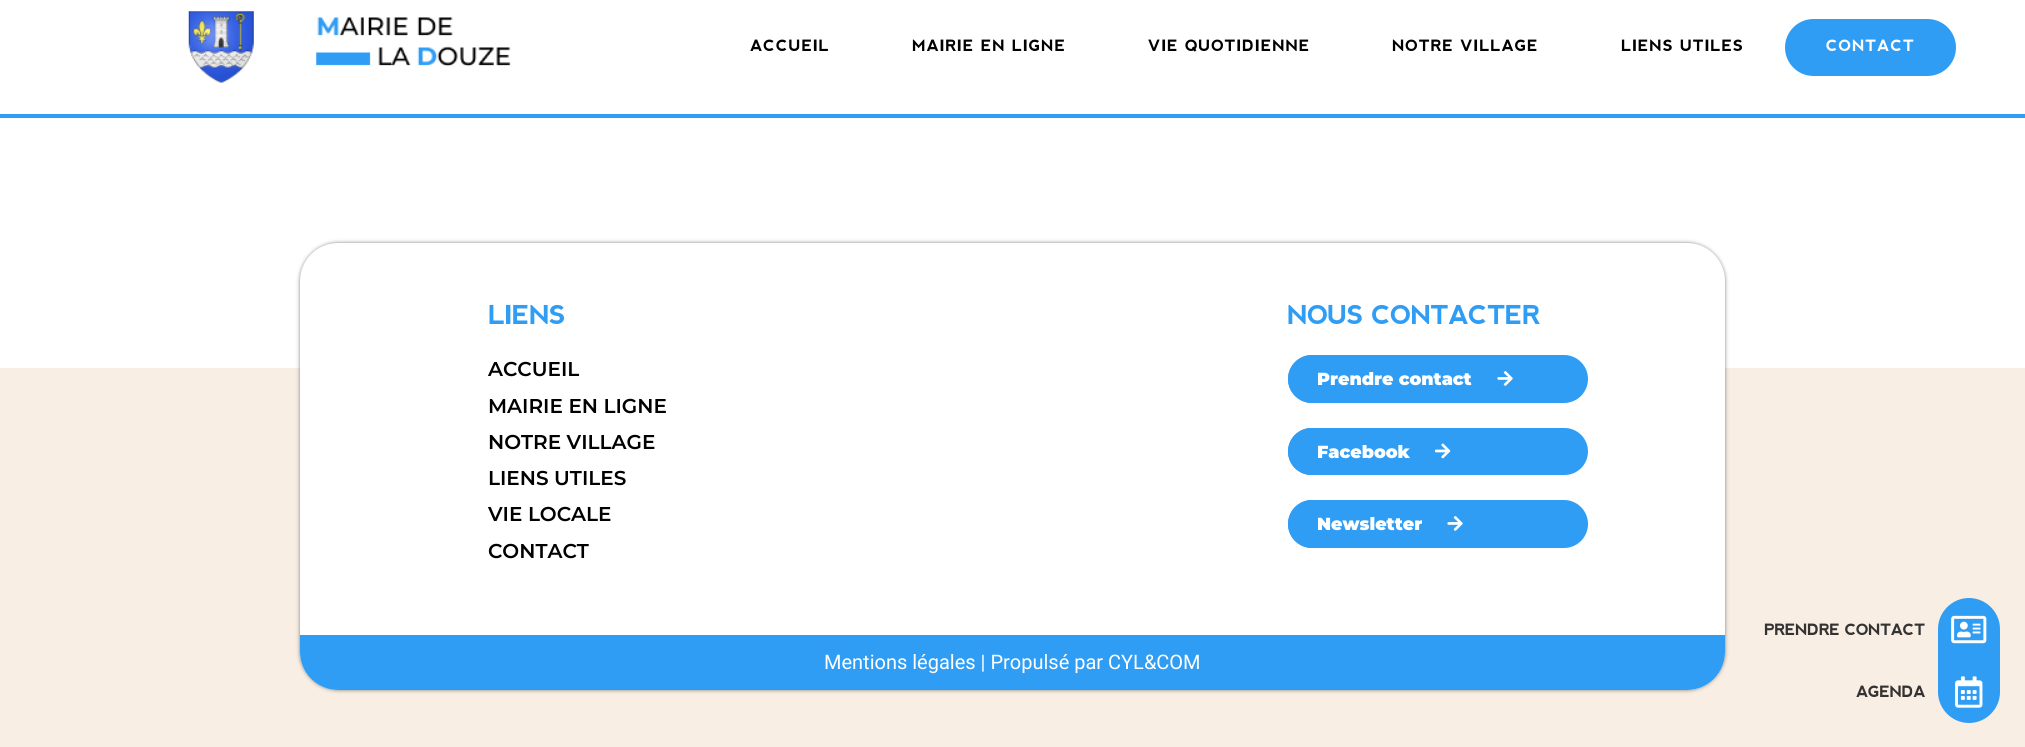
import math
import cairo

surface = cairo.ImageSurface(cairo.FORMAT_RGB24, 2025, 747)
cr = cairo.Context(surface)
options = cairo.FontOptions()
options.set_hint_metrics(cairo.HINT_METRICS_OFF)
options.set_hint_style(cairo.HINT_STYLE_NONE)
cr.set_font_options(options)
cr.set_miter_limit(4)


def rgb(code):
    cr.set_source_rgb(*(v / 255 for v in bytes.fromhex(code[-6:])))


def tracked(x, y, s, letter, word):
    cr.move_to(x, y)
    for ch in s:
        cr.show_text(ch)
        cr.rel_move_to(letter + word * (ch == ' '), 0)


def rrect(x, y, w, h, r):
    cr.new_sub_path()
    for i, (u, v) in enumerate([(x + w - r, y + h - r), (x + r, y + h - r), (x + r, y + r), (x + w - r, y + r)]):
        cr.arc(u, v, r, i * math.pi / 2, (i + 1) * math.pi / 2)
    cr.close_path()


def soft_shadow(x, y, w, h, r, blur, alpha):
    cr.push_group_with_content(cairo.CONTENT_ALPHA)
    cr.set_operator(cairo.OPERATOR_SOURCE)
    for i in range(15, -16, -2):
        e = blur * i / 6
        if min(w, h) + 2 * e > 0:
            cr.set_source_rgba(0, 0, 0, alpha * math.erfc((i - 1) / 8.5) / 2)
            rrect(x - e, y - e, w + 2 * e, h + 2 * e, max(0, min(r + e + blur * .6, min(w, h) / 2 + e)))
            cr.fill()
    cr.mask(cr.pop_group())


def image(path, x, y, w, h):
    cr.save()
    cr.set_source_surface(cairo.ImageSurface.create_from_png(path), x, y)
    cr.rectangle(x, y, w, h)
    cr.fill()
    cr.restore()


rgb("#ffffff")
cr.paint()
rgb("#309df5")
cr.rectangle(0, 114, 2025, 4)
cr.fill()
image("img/1.png", 188, 11, 66, 72)
image("img/2.png", 316, 17, 195, 50)
rrect(1785, 19, 171, 57, 28.5)
cr.fill()
rgb("#f9eee3")
cr.rectangle(0, 368, 2025, 379)
cr.fill()
rgb("#309df5")
cr.new_path()
cr.move_to(1969, 598)
cr.curve_to(1986, 598, 2000, 612, 2000, 629)
cr.line_to(2000, 660)
cr.line_to(1938, 660)
cr.line_to(1938, 629)
cr.curve_to(1938, 612, 1952, 598, 1969, 598)
cr.close_path()
cr.fill()
image("img/3.png", 1951, 615, 36, 29)
cr.new_path()
cr.move_to(1938, 660)
cr.line_to(2000, 660)
cr.line_to(2000, 692)
cr.curve_to(2000, 709, 1986, 723, 1969, 723)
cr.curve_to(1952, 723, 1938, 709, 1938, 692)
cr.close_path()
cr.fill()
image("img/4.png", 1955, 676, 28, 32)
rgb("#000000")
soft_shadow(300, 243, 1425, 447, 38, 2, 0.5)
rgb("#ffffff")
rrect(300, 243, 1425, 447, 38)
cr.fill()
rgb("#309df5")
rrect(1288, 355, 300, 48, 24)
cr.fill()
rrect(1288, 355, 255, 48, 24)
cr.fill()
image("img/5.png", 1497, 371, 16, 15)
rrect(1288, 428, 300, 47, 23.5)
cr.fill()
rrect(1288, 428, 193, 47, 23.5)
cr.fill()
image("img/6.png", 1435, 443, 16, 16)
rrect(1288, 500, 300, 48, 24)
cr.fill()
rrect(1288, 500, 205, 48, 24)
cr.fill()
image("img/5.png", 1447, 516, 16, 15)
cr.new_path()
cr.move_to(300, 635)
cr.line_to(1725, 635)
cr.line_to(1725, 652)
cr.curve_to(1725, 673, 1708, 690, 1687, 690)
cr.line_to(338, 690)
cr.curve_to(317, 690, 300, 673, 300, 652)
cr.close_path()
cr.fill()
cr.select_font_face("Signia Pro", cairo.FONT_SLANT_NORMAL, cairo.FONT_WEIGHT_BOLD)
cr.set_font_size(15)
rgb("#000000")
for x, y, s in [
    (750, 51, "ACCUEIL"),
    (912, 51, "MAIRIE EN LIGNE"),
    (1148, 51, "VIE QUOTIDIENNE"),
    (1392, 51, "NOTRE VILLAGE"),
    (1621, 51, "LIENS UTILES"),
]:
    tracked(x, y, s, 1.25, 0)
rgb("#ffffff")
tracked(1826, 51, "CONTACT", 1.25, 0)
rgb("#333333")
cr.move_to(1764, 635)
cr.show_text("PRENDRE CONTACT")
cr.move_to(1856, 697)
cr.show_text("AGENDA")
cr.set_font_size(25)
rgb("#309df5")
cr.move_to(488, 324)
cr.show_text("LIENS")
cr.select_font_face("Montserrat SemiBold")
cr.set_font_size(20)
rgb("#000000")
for x, y, s in [
    (488, 376, "ACCUEIL"),
    (488, 413, "MAIRIE EN LIGNE"),
    (488, 449, "NOTRE VILLAGE"),
    (488, 485, "LIENS UTILES"),
    (488, 521, "VIE LOCALE"),
    (488, 558, "CONTACT"),
]:
    cr.move_to(x, y)
    cr.show_text(s)
cr.select_font_face("Signia Pro", cairo.FONT_SLANT_NORMAL, cairo.FONT_WEIGHT_BOLD)
cr.set_font_size(25)
rgb("#309df5")
cr.move_to(1287, 324)
cr.show_text("NOUS CONTACTER")
cr.select_font_face("Montserrat Black")
cr.set_font_size(17.5)
rgb("#ffffff")
for x, y, s in [
    (1317, 385, "Prendre contact"),
    (1317, 458, "Facebook"),
    (1317, 530, "Newsletter"),
]:
    cr.move_to(x, y)
    cr.show_text(s)
cr.select_font_face("Roboto")
cr.set_font_size(20)
cr.move_to(824, 669)
cr.show_text("Mentions légales | Propulsé par CYL&COM")
surface.write_to_png("page.png")
